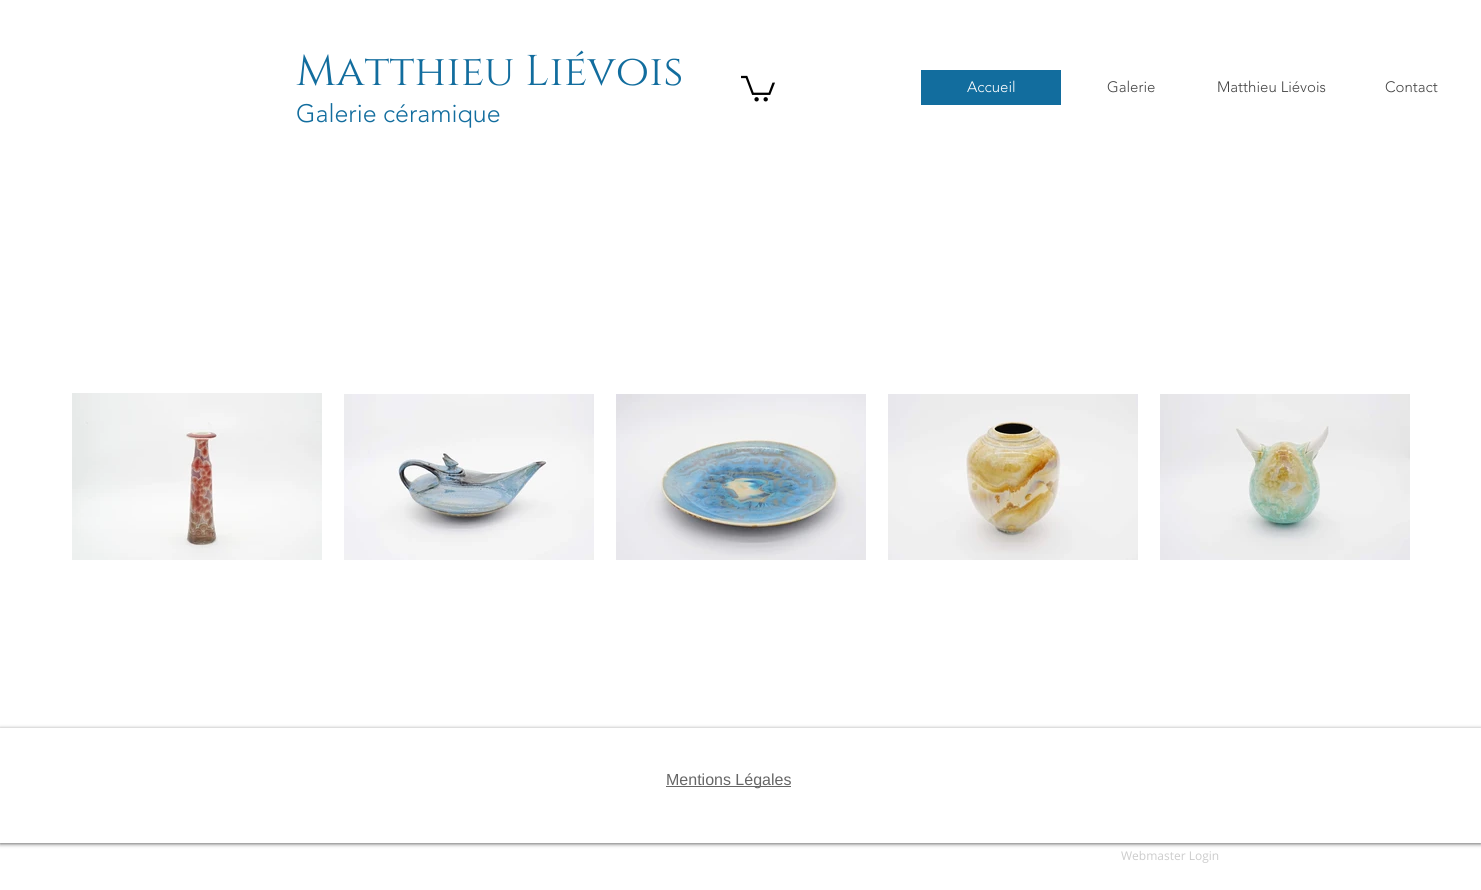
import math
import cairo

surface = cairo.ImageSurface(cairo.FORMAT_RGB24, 1481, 890)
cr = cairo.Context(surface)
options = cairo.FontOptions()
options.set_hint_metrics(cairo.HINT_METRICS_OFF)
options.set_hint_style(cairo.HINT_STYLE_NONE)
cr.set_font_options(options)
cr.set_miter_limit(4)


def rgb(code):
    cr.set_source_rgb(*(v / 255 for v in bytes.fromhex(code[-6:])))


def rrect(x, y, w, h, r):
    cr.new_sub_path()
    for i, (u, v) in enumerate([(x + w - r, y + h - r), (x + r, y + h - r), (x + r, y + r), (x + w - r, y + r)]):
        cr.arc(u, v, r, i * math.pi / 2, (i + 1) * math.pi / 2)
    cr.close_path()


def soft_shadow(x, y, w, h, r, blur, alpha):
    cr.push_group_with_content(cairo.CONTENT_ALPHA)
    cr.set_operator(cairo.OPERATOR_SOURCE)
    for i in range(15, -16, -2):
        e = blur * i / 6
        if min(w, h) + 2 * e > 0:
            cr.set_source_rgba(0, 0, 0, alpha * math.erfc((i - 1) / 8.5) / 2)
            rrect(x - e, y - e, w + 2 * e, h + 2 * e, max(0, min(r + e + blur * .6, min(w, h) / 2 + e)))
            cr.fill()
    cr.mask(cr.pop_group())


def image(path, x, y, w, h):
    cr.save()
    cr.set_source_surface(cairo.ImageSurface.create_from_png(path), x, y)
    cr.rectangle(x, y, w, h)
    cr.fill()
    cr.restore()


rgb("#ffffff")
cr.paint()
image("img/1.png", 741, 75, 34, 27)
rgb("#126d9e")
cr.rectangle(921, 70, 140, 35)
cr.fill()
image("img/2.png", 72, 393, 250, 167)
image("img/3.png", 344, 394, 250, 166)
image("img/4.png", 616, 394, 250, 166)
image("img/5.png", 888, 394, 250, 166)
image("img/6.png", 1160, 394, 250, 166)
cr.save()
cr.set_fill_rule(cairo.FILL_RULE_EVEN_ODD)
cr.new_path()
cr.move_to(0, 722)
cr.line_to(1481, 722)
cr.line_to(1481, 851)
cr.line_to(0, 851)
cr.close_path()
cr.move_to(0, 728)
cr.line_to(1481, 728)
cr.line_to(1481, 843)
cr.line_to(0, 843)
cr.close_path()
cr.clip()
rgb("#000000")
soft_shadow(0, 729, 1481, 115, 0, 2, 0.6)
cr.restore()
rgb("#666666")
cr.rectangle(666, 786, 125, 1)
cr.fill()
cr.select_font_face("Cinzel")
cr.set_font_size(43)
rgb("#126d9e")
cr.move_to(296, 85)
cr.show_text("Matthieu Liévois")
cr.select_font_face("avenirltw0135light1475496 Light")
cr.set_font_size(25)
cr.move_to(296, 122)
cr.show_text("Galerie céramique")
cr.set_font_size(15)
rgb("#ffffff")
cr.move_to(967, 92)
cr.show_text("Accueil")
rgb("#444444")
for x, y, s in [
    (1107, 92, "Galerie"),
    (1217, 92, "Matthieu Liévois"),
    (1385, 92, "Contact"),
]:
    cr.move_to(x, y)
    cr.show_text(s)
cr.select_font_face("Liberation Sans")
cr.set_font_size(16)
rgb("#666666")
cr.move_to(666, 785)
cr.show_text("Mentions Légales")
cr.select_font_face("Open Sans")
cr.set_font_size(12)
rgb("#cccccc")
cr.move_to(1121, 860)
cr.show_text("Webmaster Login")
surface.write_to_png("page.png")
